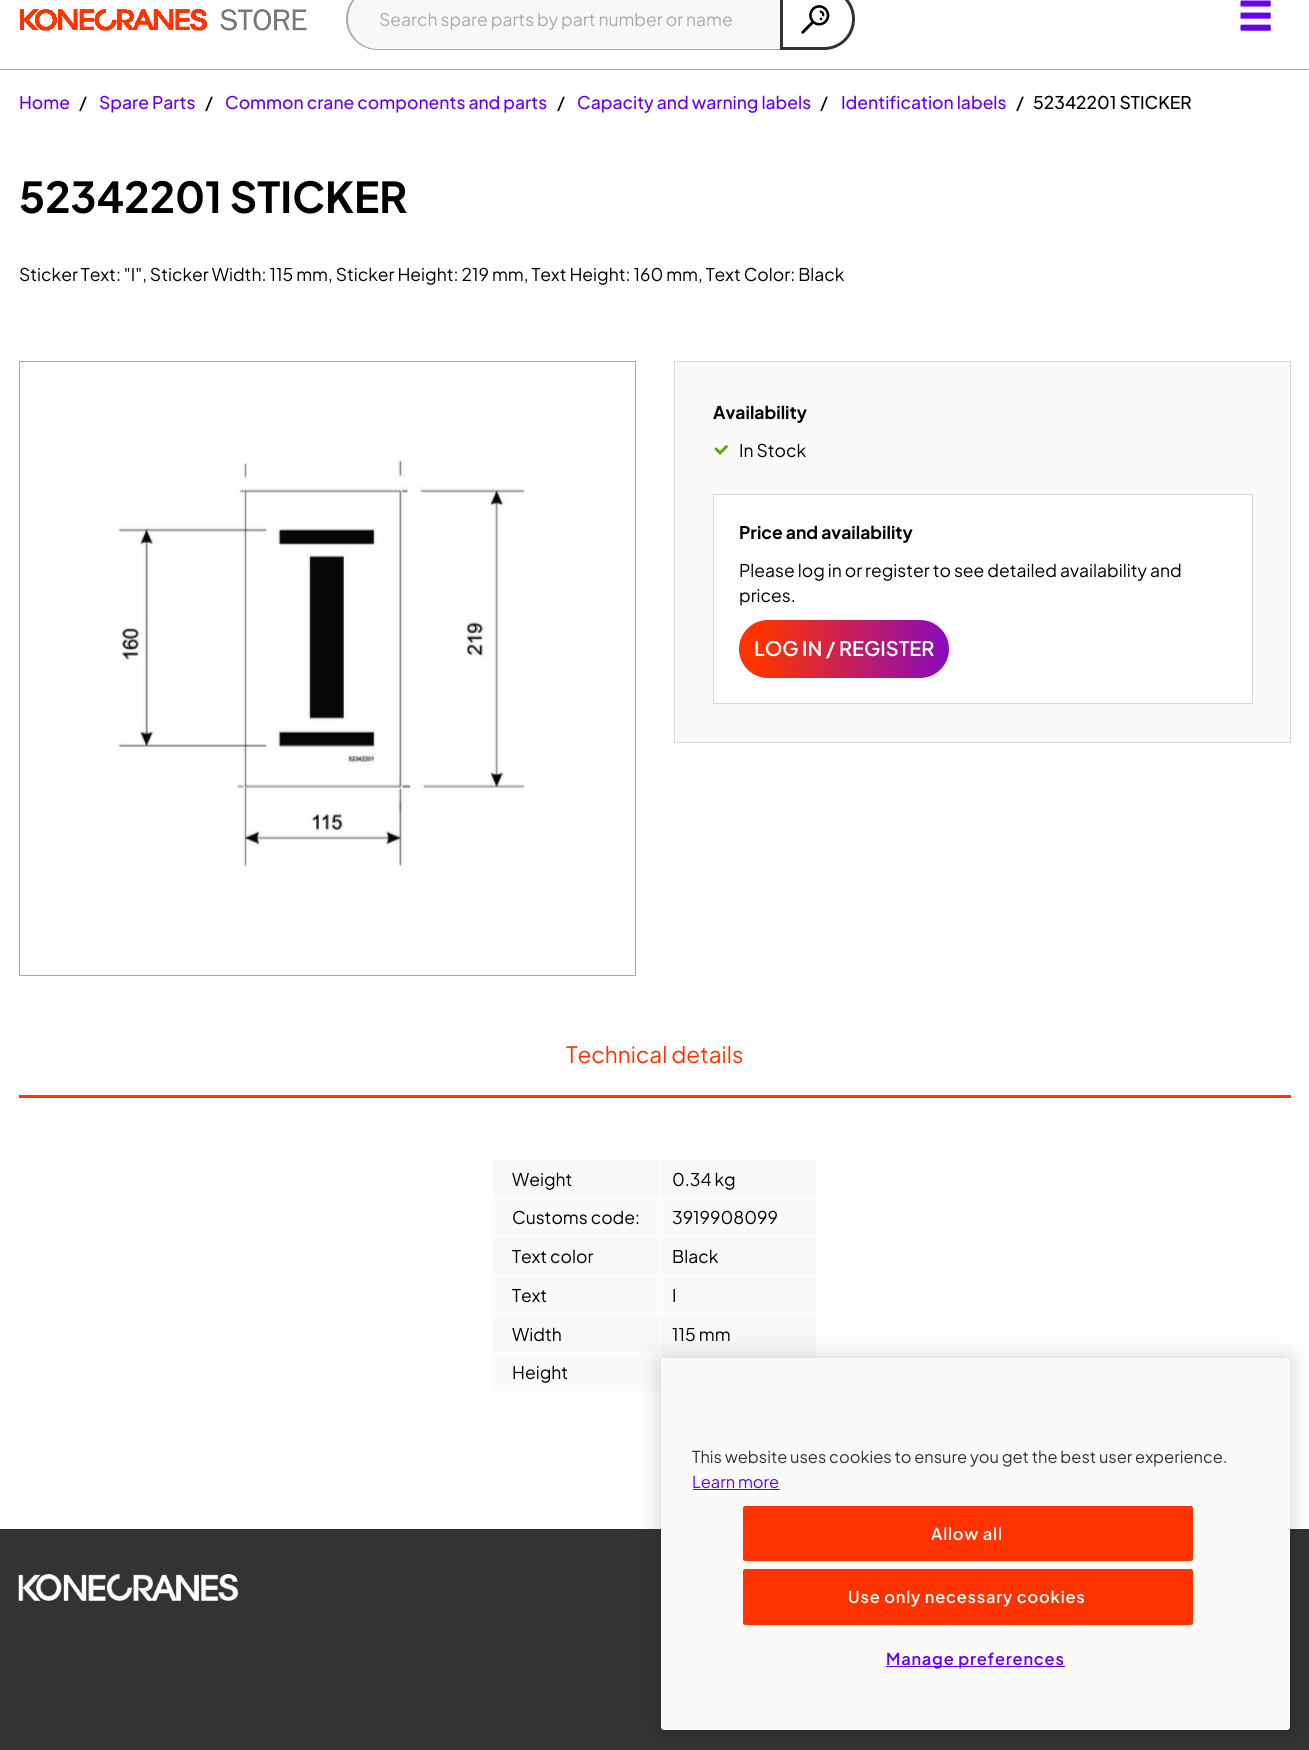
import math
import cairo

surface = cairo.ImageSurface(cairo.FORMAT_RGB24, 1309, 1750)
cr = cairo.Context(surface)
options = cairo.FontOptions()
options.set_hint_metrics(cairo.HINT_METRICS_OFF)
options.set_hint_style(cairo.HINT_STYLE_NONE)
cr.set_font_options(options)
cr.set_miter_limit(4)


def rgb(code):
    cr.set_source_rgb(*(v / 255 for v in bytes.fromhex(code[-6:])))


def tracked(x, y, s, letter, word):
    cr.move_to(x, y)
    for ch in s:
        cr.show_text(ch)
        cr.rel_move_to(letter + word * (ch == ' '), 0)


def rrect(x, y, w, h, r):
    cr.new_sub_path()
    for i, (u, v) in enumerate([(x + w - r, y + h - r), (x + r, y + h - r), (x + r, y + r), (x + w - r, y + r)]):
        cr.arc(u, v, r, i * math.pi / 2, (i + 1) * math.pi / 2)
    cr.close_path()


def soft_shadow(x, y, w, h, r, blur, alpha):
    cr.push_group_with_content(cairo.CONTENT_ALPHA)
    cr.set_operator(cairo.OPERATOR_SOURCE)
    for i in range(15, -16, -2):
        e = blur * i / 6
        if min(w, h) + 2 * e > 0:
            cr.set_source_rgba(0, 0, 0, alpha * math.erfc((i - 1) / 8.5) / 2)
            rrect(x - e, y - e, w + 2 * e, h + 2 * e, max(0, min(r + e + blur * .6, min(w, h) / 2 + e)))
            cr.fill()
    cr.mask(cr.pop_group())


def image(path, x, y, w, h):
    cr.save()
    cr.set_source_surface(cairo.ImageSurface.create_from_png(path), x, y)
    cr.rectangle(x, y, w, h)
    cr.fill()
    cr.restore()


rgb("#ffffff")
cr.paint()
image("img/1.png", 20, 9, 287, 22)
rgb("#f8f8f8")
cr.new_path()
cr.move_to(377, -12)
cr.line_to(781, -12)
cr.line_to(781, 50)
cr.line_to(377, 50)
cr.curve_to(360, 50, 346, 36, 346, 19)
cr.curve_to(346, 2, 360, -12, 377, -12)
cr.close_path()
cr.fill()
rgb("#aaaaaa")
cr.set_fill_rule(cairo.FILL_RULE_EVEN_ODD)
cr.new_path()
cr.move_to(378, -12)
cr.line_to(781, -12)
cr.line_to(781, 50)
cr.line_to(378, 50)
cr.curve_to(360, 50, 346, 36, 346, 19)
cr.curve_to(346, 1, 360, -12, 378, -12)
cr.close_path()
cr.move_to(378, -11)
cr.line_to(781, -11)
cr.line_to(781, 49)
cr.line_to(378, 49)
cr.curve_to(361, 49, 348, 35, 348, 19)
cr.curve_to(348, 2, 361, -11, 378, -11)
cr.close_path()
cr.fill()
rgb("#ffffff")
cr.new_path()
cr.move_to(781.5, -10.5)
cr.line_to(824, -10.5)
cr.curve_to(840.5, -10.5, 853.5, 2.5, 853.5, 19)
cr.curve_to(853.5, 35.5, 840.5, 48.5, 824, 48.5)
cr.line_to(781.5, 48.5)
cr.close_path()
cr.fill_preserve()
rgb("#333333")
cr.set_line_width(3)
cr.stroke()
image("img/2.png", 801, 5, 29, 29)
image("img/3.png", 1240, 0, 31, 31)
rgb("#aaaaaa")
cr.rectangle(0, 69, 1309, 1)
cr.fill()
cr.rectangle(19.5, 361.5, 616, 614)
cr.set_line_width(1)
cr.stroke()
image("img/4.png", 118, 458, 407, 411)
rgb("#fafafa")
cr.rectangle(674.5, 361.5, 616, 381)
cr.fill_preserve()
rgb("#d9d9d9")
cr.stroke()
image("img/5.png", 714, 444, 15, 11)
rgb("#ffffff")
cr.rectangle(713.5, 494.5, 539, 209)
cr.fill_preserve()
rgb("#d9d9d9")
cr.stroke()
gradient = cairo.LinearGradient(738, 648, 996, 657)
gradient.add_color_stop_rgba(0.08, 1, 0.2, 0, 1)
gradient.add_color_stop_rgba(1, 0.412, 0, 0.925, 1)
cr.set_source(gradient)
rrect(739, 620, 210, 58, 29)
cr.fill()
for x, y, w, h, color in [
    (19, 1095, 1272, 3, "#ff3300"),
    (493, 1160, 166, 38, "#f8f8f8"),
    (660, 1160, 156, 38, "#f8f8f8"),
    (493, 1199, 323, 37, "#fafafa"),
    (659, 1198, 1, 40, "#ffffff"),
    (493, 1237, 166, 38, "#f8f8f8"),
    (660, 1237, 156, 38, "#f8f8f8"),
    (493, 1276, 323, 38, "#fafafa"),
    (659, 1275, 1, 40, "#ffffff"),
    (493, 1315, 166, 38, "#f8f8f8"),
    (660, 1315, 156, 38, "#f8f8f8"),
    (493, 1354, 323, 37, "#fafafa"),
    (659, 1353, 1, 38, "#ffffff"),
    (0, 1529, 1309, 221, "#333333"),
]:
    rgb(color)
    cr.rectangle(x, y, w, h)
    cr.fill()
image("img/6.png", 18, 1574, 221, 27)
rgb("#000000")
soft_shadow(661, 1358, 629, 372, 3, 11, 0.2)
rgb("#fafafa")
rrect(661, 1358, 629, 372, 3)
cr.fill()
rgb("#6900ec")
cr.rectangle(693, 1489, 87, 1)
cr.fill()
rgb("#ff3300")
rrect(743.5, 1506.5, 449, 54, 2)
cr.fill_preserve()
cr.stroke()
rrect(743.5, 1569.5, 449, 55, 2)
cr.fill_preserve()
cr.stroke()
rgb("#6900ec")
cr.rectangle(886, 1666, 179, 1)
cr.fill()
cr.select_font_face("Plus Jakarta Sans")
cr.set_font_size(17.5)
rgb("#aaaaaa")
cr.move_to(379, 26)
cr.show_text("Search spare parts by part number or name")
cr.select_font_face("Plus Jakarta Sans Medium")
rgb("#6900ec")
cr.move_to(19, 109)
cr.show_text("Home")
rgb("#000000")
cr.move_to(79, 109)
cr.show_text("/")
rgb("#6900ec")
cr.move_to(99, 109)
cr.show_text("Spare Parts")
rgb("#000000")
cr.move_to(205, 109)
cr.show_text("/")
rgb("#6900ec")
cr.move_to(225, 109)
cr.show_text("Common crane components and parts")
rgb("#000000")
cr.move_to(557, 109)
cr.show_text("/")
rgb("#6900ec")
cr.move_to(577, 109)
cr.show_text("Capacity and warning labels")
rgb("#000000")
cr.move_to(820, 109)
cr.show_text("/")
rgb("#6900ec")
cr.move_to(841, 109)
cr.show_text("Identification labels")
rgb("#000000")
cr.move_to(1016, 109)
cr.show_text("/")
cr.move_to(1033, 109)
cr.show_text("52342201 STICKER")
cr.select_font_face("Plus Jakarta Sans", cairo.FONT_SLANT_NORMAL, cairo.FONT_WEIGHT_BOLD)
cr.set_font_size(42.5)
cr.move_to(19, 213)
cr.show_text("52342201 STICKER")
cr.select_font_face("Plus Jakarta Sans")
cr.set_font_size(17.5)
cr.move_to(19, 281)
cr.show_text("Sticker Text: \"I\", Sticker Width: 115 mm, Sticker Height: 219 mm, Text Height: 160 mm, Text Color: Black")
cr.select_font_face("Plus Jakarta Sans", cairo.FONT_SLANT_NORMAL, cairo.FONT_WEIGHT_BOLD)
cr.move_to(713, 419)
cr.show_text("Availability")
cr.select_font_face("Plus Jakarta Sans")
cr.move_to(739, 457)
cr.show_text("In Stock")
cr.select_font_face("Plus Jakarta Sans", cairo.FONT_SLANT_NORMAL, cairo.FONT_WEIGHT_BOLD)
cr.move_to(739, 539)
cr.show_text("Price and availability")
cr.select_font_face("Plus Jakarta Sans")
cr.move_to(739, 577)
cr.show_text("Please log in or register to see detailed availability and")
cr.move_to(739, 602)
cr.show_text("prices.")
cr.select_font_face("Plus Jakarta Sans SemiBold")
cr.set_font_size(20)
rgb("#ffffff")
cr.move_to(754, 656)
cr.show_text("LOG IN / REGISTER")
cr.select_font_face("Plus Jakarta Sans")
cr.set_font_size(22.5)
rgb("#ff3300")
cr.move_to(566, 1063)
cr.show_text("Technical details")
cr.set_font_size(17.5)
rgb("#000000")
for x, y, s in [
    (512, 1186, "Weight"),
    (672, 1186, "0.34 kg"),
    (512, 1224, "Customs code:"),
    (672, 1224, "3919908099"),
    (512, 1263, "Text color"),
    (672, 1263, "Black"),
    (512, 1302, "Text"),
    (672, 1302, "I"),
    (512, 1341, "Width"),
    (672, 1341, "115 mm"),
    (512, 1379, "Height"),
]:
    cr.move_to(x, y)
    cr.show_text(s)
cr.set_font_size(16.4)
rgb("#333333")
cr.move_to(692, 1463)
cr.show_text("This website uses cookies to ensure you get the best user experience.")
rgb("#6900ec")
cr.move_to(692, 1488)
cr.show_text("Learn more")
cr.select_font_face("Plus Jakarta Sans SemiBold")
rgb("#ffffff")
tracked(931, 1540, "Allow all", 0.8, 0)
tracked(848, 1603, "Use only necessary cookies", 0.8, 0)
rgb("#6900ec")
tracked(886, 1665, "Manage preferences", 0.8, 0)
surface.write_to_png("page.png")
